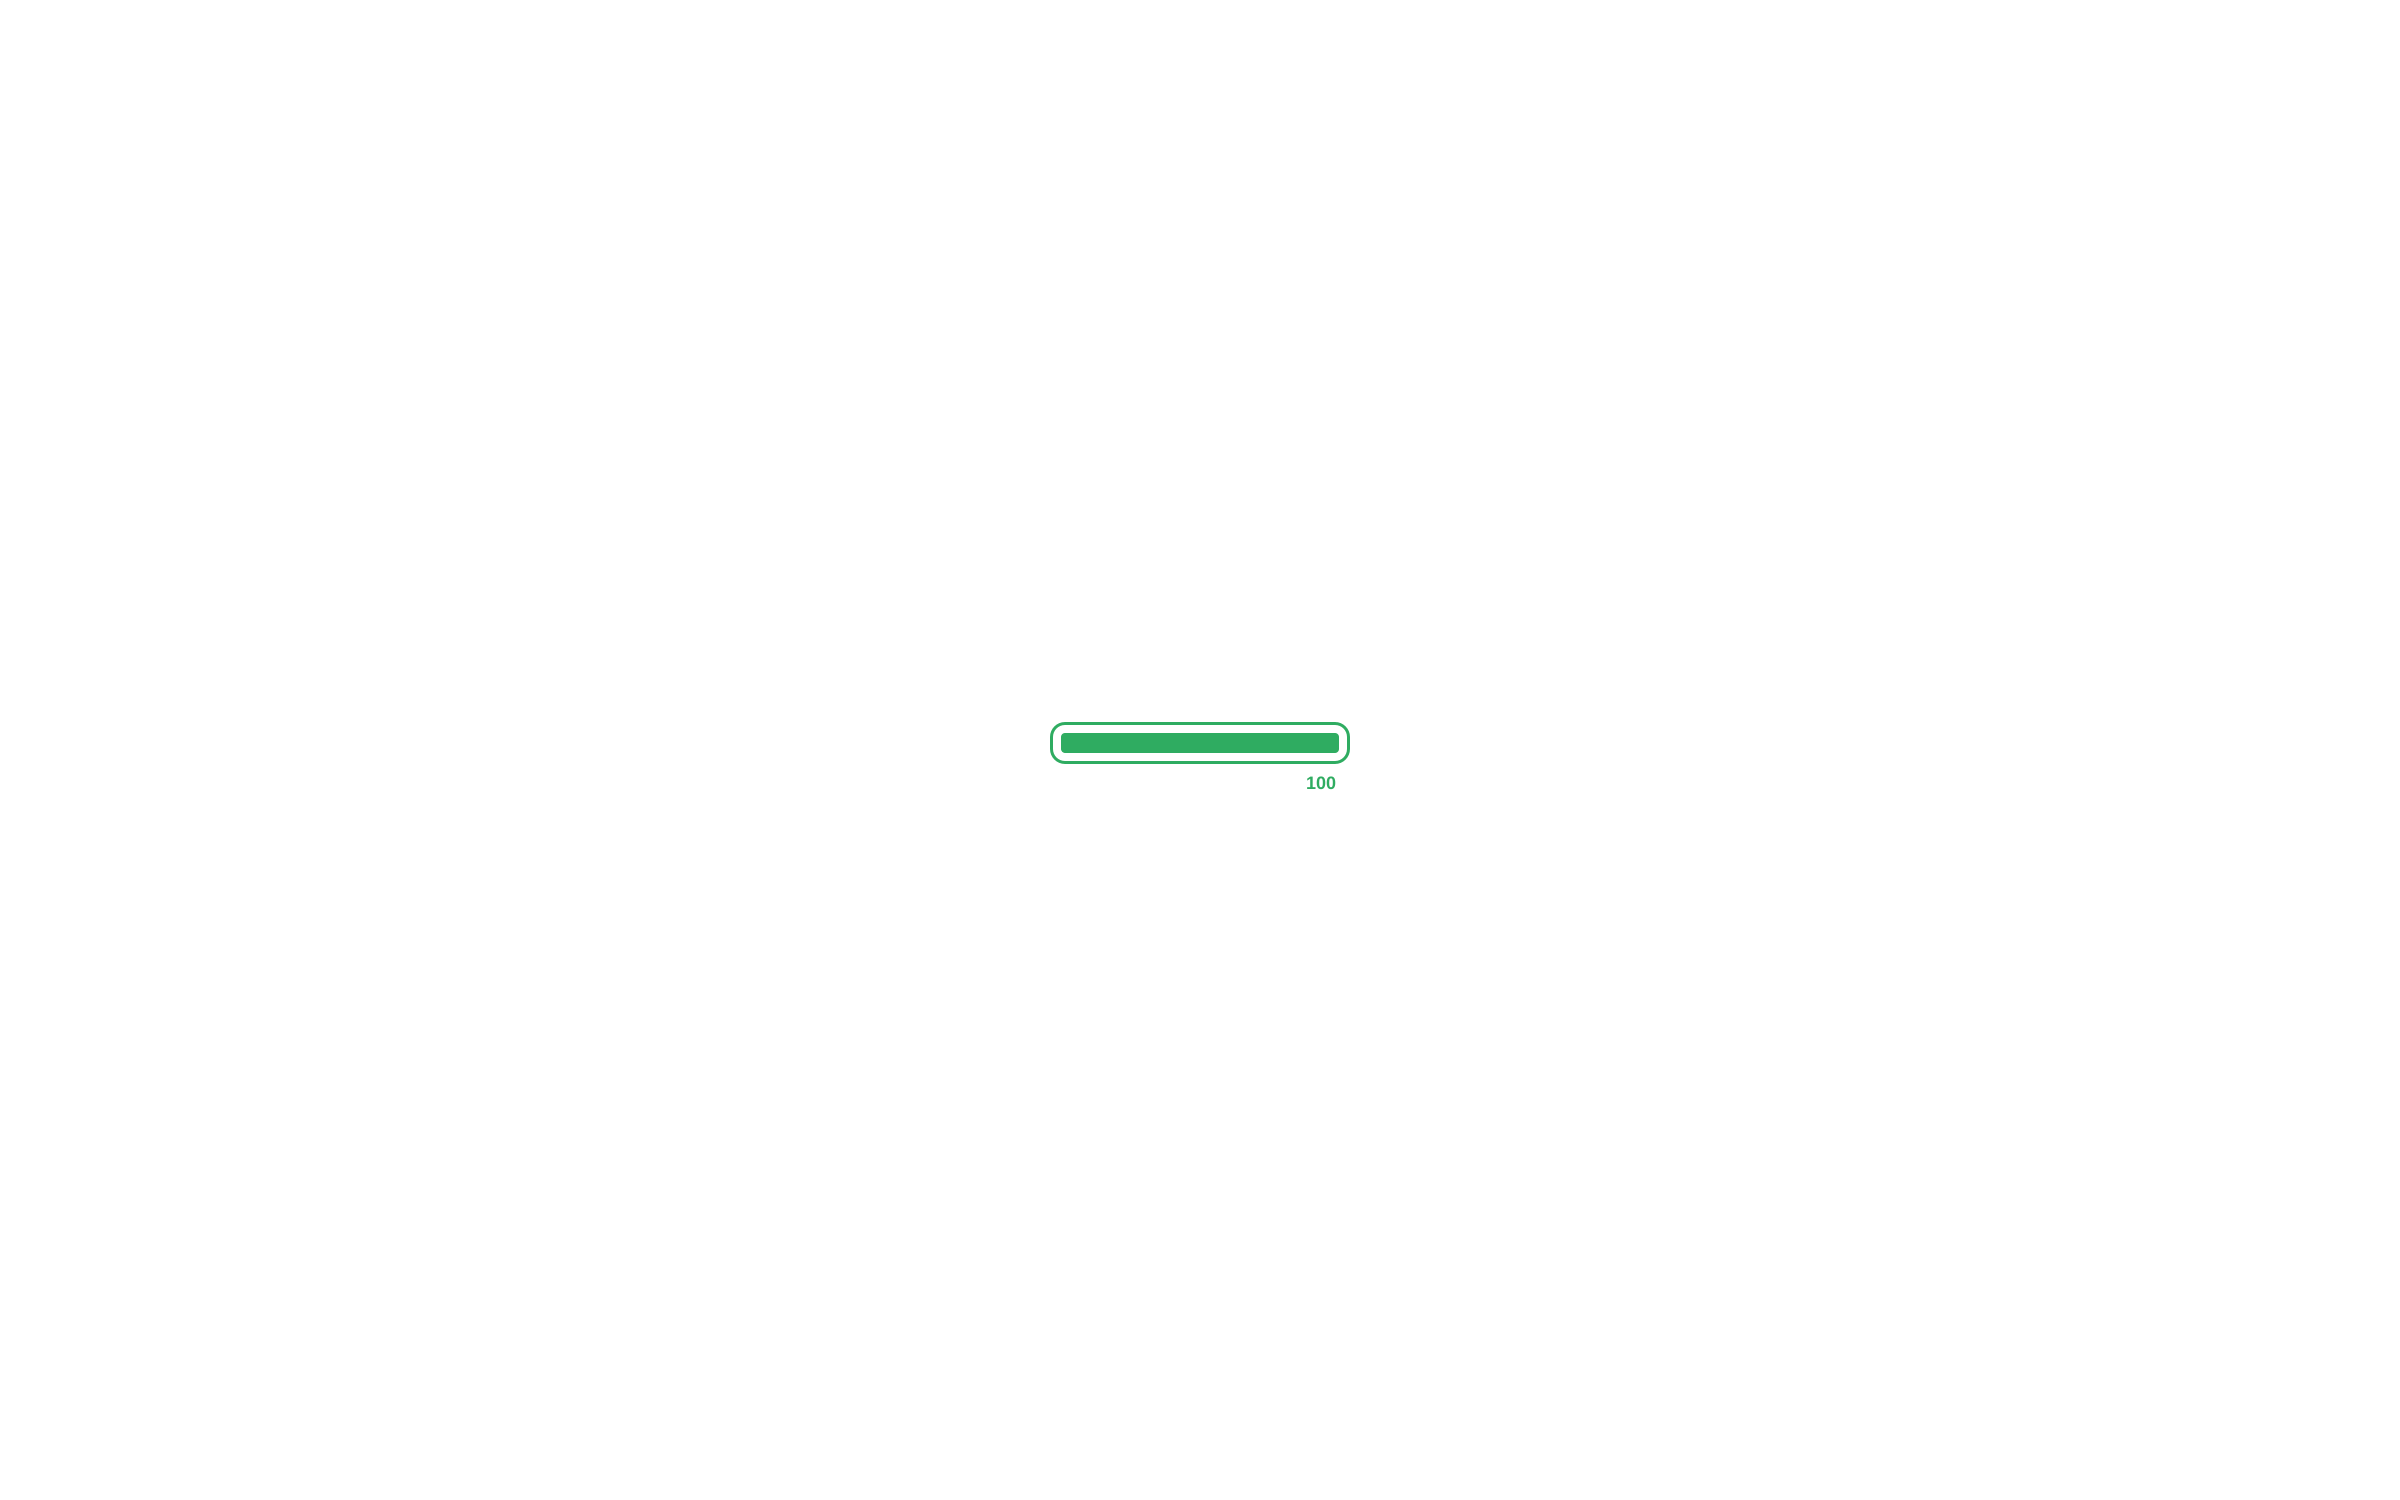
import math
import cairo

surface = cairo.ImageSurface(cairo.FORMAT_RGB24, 2400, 1500)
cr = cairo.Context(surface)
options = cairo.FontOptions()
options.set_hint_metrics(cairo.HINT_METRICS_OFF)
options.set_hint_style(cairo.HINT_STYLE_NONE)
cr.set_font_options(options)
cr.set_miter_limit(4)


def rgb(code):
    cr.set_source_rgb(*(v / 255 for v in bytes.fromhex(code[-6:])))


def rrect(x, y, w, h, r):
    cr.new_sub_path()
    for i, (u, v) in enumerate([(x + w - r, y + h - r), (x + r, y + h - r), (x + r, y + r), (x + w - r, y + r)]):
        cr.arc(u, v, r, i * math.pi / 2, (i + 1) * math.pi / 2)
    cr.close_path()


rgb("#ffffff")
cr.paint()
rgb("#2fac61")
rrect(1061, 732, 279, 21, 3)
cr.fill()
rrect(1055.5, 727.5, 289, 31, 9.5)
rgb("#ffffff")
cr.set_line_width(11)
cr.stroke()
rrect(1051.5, 723.5, 297, 39, 13.5)
rgb("#2fac61")
cr.set_line_width(3)
cr.stroke()
cr.select_font_face("Liberation Sans", cairo.FONT_SLANT_NORMAL, cairo.FONT_WEIGHT_BOLD)
cr.set_font_size(18)
cr.move_to(1306, 789)
cr.show_text("100")
surface.write_to_png("page.png")
